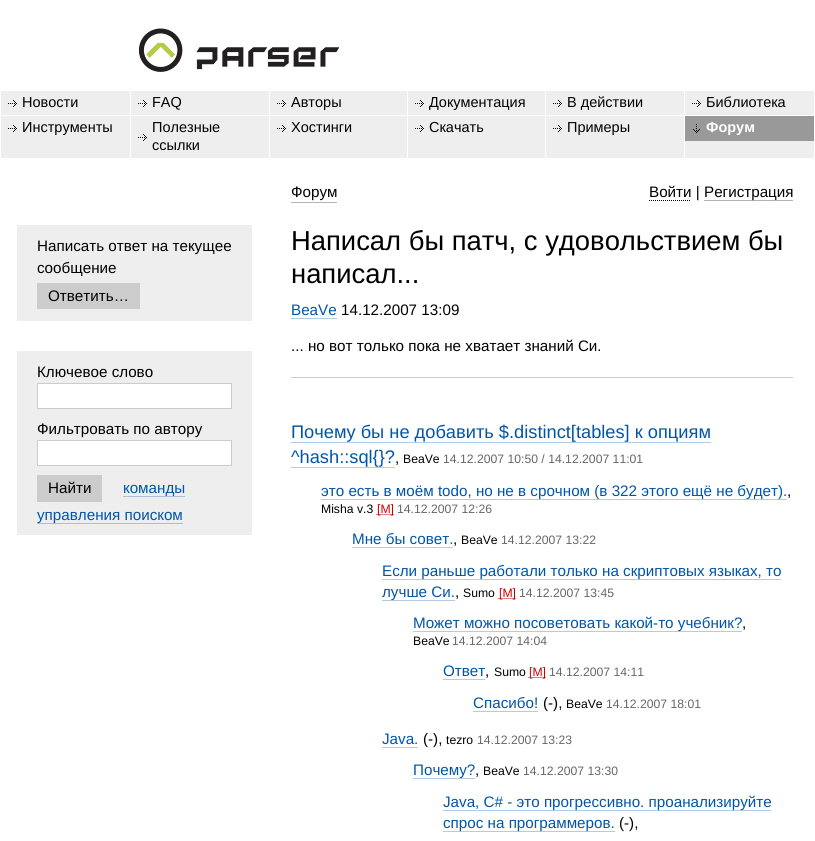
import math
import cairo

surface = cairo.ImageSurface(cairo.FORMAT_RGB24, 815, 841)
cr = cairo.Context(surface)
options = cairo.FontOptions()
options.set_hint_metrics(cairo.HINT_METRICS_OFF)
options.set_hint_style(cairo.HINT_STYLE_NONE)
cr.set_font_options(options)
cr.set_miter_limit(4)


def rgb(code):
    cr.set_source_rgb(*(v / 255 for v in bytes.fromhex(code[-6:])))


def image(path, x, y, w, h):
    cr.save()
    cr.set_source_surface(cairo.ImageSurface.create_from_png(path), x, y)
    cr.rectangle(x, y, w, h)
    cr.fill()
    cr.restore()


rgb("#ffffff")
cr.paint()
image("img/1.png", 139, 28, 200, 44)
rgb("#eeeeee")
cr.rectangle(1, 91, 129, 24)
cr.fill()
image("img/2.png", 8, 100, 9, 7)
cr.rectangle(131, 91, 138, 24)
cr.fill()
image("img/2.png", 138, 100, 9, 7)
cr.rectangle(270, 91, 137, 24)
cr.fill()
image("img/2.png", 277, 100, 9, 7)
cr.rectangle(408, 91, 137, 24)
cr.fill()
image("img/2.png", 415, 100, 9, 7)
cr.rectangle(546, 91, 138, 24)
cr.fill()
image("img/2.png", 553, 100, 9, 7)
cr.rectangle(685, 91, 129, 24)
cr.fill()
image("img/2.png", 692, 100, 9, 7)
cr.rectangle(1, 116, 129, 42)
cr.fill()
image("img/2.png", 8, 125, 9, 7)
cr.rectangle(131, 116, 138, 42)
cr.fill()
image("img/2.png", 138, 134, 9, 7)
cr.rectangle(270, 116, 137, 42)
cr.fill()
image("img/2.png", 277, 125, 9, 7)
cr.rectangle(408, 116, 137, 42)
cr.fill()
image("img/2.png", 415, 125, 9, 7)
cr.rectangle(546, 116, 138, 42)
cr.fill()
image("img/2.png", 553, 125, 9, 7)
cr.rectangle(685, 141, 129, 17)
cr.fill()
rgb("#999999")
cr.rectangle(685, 116, 129, 25)
cr.fill()
image("img/3.png", 693, 124, 7, 9)
rgb("#b3b3b3")
cr.rectangle(291, 202, 46, 1)
cr.fill()
cr.new_path()
cr.move_to(649, 200.5)
cr.line_to(691, 200.5)
rgb("#000000")
cr.set_line_width(1)
cr.set_dash([1, 1])
cr.stroke()
for x, y, w, h, color in [
    (704, 200, 89, 1, "#b3b3b3"),
    (17, 225, 235, 96, "#eeeeee"),
    (37, 283, 103, 26, "#cccccc"),
    (17, 351, 235, 184, "#eeeeee"),
]:
    rgb(color)
    cr.rectangle(x, y, w, h)
    cr.fill()
rgb("#ffffff")
cr.rectangle(37.5, 383.5, 194, 25)
cr.fill_preserve()
rgb("#cccccc")
cr.set_dash([])
cr.stroke()
rgb("#ffffff")
cr.rectangle(37.5, 440.5, 194, 25)
cr.fill_preserve()
rgb("#cccccc")
cr.stroke()
for x, y, w, h, color in [
    (37, 475, 65, 27, "#cccccc"),
    (123, 496, 62, 1, "#a7c0da"),
    (37, 523, 146, 1, "#a7c0da"),
    (291, 318, 46, 1, "#b3cce6"),
    (291, 377, 502, 1, "#cccccc"),
    (291, 442, 420, 1, "#b3cce6"),
    (291, 467, 104, 1, "#b3cce6"),
    (321, 499, 466, 1, "#b3cce6"),
]:
    rgb(color)
    cr.rectangle(x, y, w, h)
    cr.fill()
cr.new_path()
cr.move_to(376.5, 514.5)
cr.line_to(393.5, 514.5)
rgb("#cc0000")
cr.set_dash([1, 1])
cr.stroke()
for x, y, w, h, color in [
    (352, 547, 101, 1, "#b3cce6"),
    (382, 579, 399, 1, "#b3cce6"),
    (382, 600, 73, 1, "#b3cce6"),
]:
    rgb(color)
    cr.rectangle(x, y, w, h)
    cr.fill()
cr.new_path()
cr.move_to(498.5, 598.5)
cr.line_to(515.5, 598.5)
rgb("#cc0000")
cr.stroke()
rgb("#b3cce6")
cr.rectangle(413, 631, 329, 1)
cr.fill()
cr.rectangle(443, 679, 42, 1)
cr.fill()
cr.new_path()
cr.move_to(528.5, 677.5)
cr.line_to(545.5, 677.5)
rgb("#cc0000")
cr.stroke()
for x, y, w, h, color in [
    (473, 711, 65, 1, "#b3cce6"),
    (382, 747, 36, 1, "#b3cce6"),
    (413, 778, 62, 1, "#b3cce6"),
    (443, 810, 328, 1, "#b3cce6"),
    (443, 831, 172, 1, "#b3cce6"),
]:
    rgb(color)
    cr.rectangle(x, y, w, h)
    cr.fill()
cr.select_font_face("Liberation Sans")
cr.set_font_size(14.5)
rgb("#000000")
for x, y, s in [
    (22, 107, "Новости"),
    (152, 107, "FAQ"),
    (291, 107, "Авторы"),
    (429, 107, "Документация"),
    (567, 107, "В действии"),
    (706, 107, "Библиотека"),
    (22, 132, "Инструменты"),
    (152, 132, "Полезные"),
    (152, 150, "ссылки"),
    (291, 132, "Хостинги"),
    (429, 132, "Скачать"),
    (567, 132, "Примеры"),
]:
    cr.move_to(x, y)
    cr.show_text(s)
cr.select_font_face("Liberation Sans", cairo.FONT_SLANT_NORMAL, cairo.FONT_WEIGHT_BOLD)
rgb("#ffffff")
cr.move_to(706, 132)
cr.show_text("Форум")
cr.select_font_face("Liberation Sans")
cr.set_font_size(15.2)
rgb("#000000")
for x, y, s in [
    (291, 197, "Форум"),
    (649, 197, "Войти |"),
    (704, 197, "Регистрация"),
    (37, 251, "Написать ответ на текущее"),
    (37, 273, "сообщение"),
    (48, 301, "Ответить…"),
    (37, 377, "Ключевое слово"),
    (37, 434, "Фильтровать по автору"),
    (48, 493, "Найти"),
]:
    cr.move_to(x, y)
    cr.show_text(s)
rgb("#0055aa")
cr.move_to(123, 493)
cr.show_text("команды")
cr.move_to(37, 520)
cr.show_text("управления поиском")
cr.set_font_size(27.4)
rgb("#000000")
cr.move_to(291, 250)
cr.show_text("Написал бы патч, с удовольствием бы")
cr.move_to(291, 283)
cr.show_text("написал...")
cr.set_font_size(15.2)
rgb("#0055aa")
cr.move_to(291, 315)
cr.show_text("BeaVe")
rgb("#000000")
cr.move_to(341, 315)
cr.show_text("14.12.2007 13:09")
cr.move_to(291, 351)
cr.show_text("... но вот только пока не хватает знаний Си.")
cr.set_font_size(18.25)
rgb("#0055aa")
cr.move_to(291, 438)
cr.show_text("Почему бы не добавить $.distinct[tables] к опциям")
cr.move_to(291, 463)
cr.show_text("^hash::sql{}?")
cr.set_font_size(15.2)
rgb("#000000")
cr.move_to(395, 463)
cr.show_text(",")
cr.set_font_size(12.2)
cr.move_to(403, 463)
cr.show_text("BeaVe")
rgb("#666666")
cr.move_to(443, 463)
cr.show_text("14.12.2007 10:50 / 14.12.2007 11:01")
cr.set_font_size(15.2)
rgb("#0055aa")
cr.move_to(321, 496)
cr.show_text("это есть в моём todo, но не в срочном (в 322 этого ещё не будет).")
rgb("#000000")
cr.move_to(787, 496)
cr.show_text(",")
cr.set_font_size(12.2)
cr.move_to(321, 513)
cr.show_text("Misha v.3")
rgb("#cc0000")
cr.move_to(377, 513)
cr.show_text("[M]")
rgb("#666666")
cr.move_to(397, 513)
cr.show_text("14.12.2007 12:26")
cr.set_font_size(15.2)
rgb("#0055aa")
cr.move_to(352, 544)
cr.show_text("Мне бы совет.")
rgb("#000000")
cr.move_to(453, 544)
cr.show_text(",")
cr.set_font_size(12.2)
cr.move_to(461, 544)
cr.show_text("BeaVe")
rgb("#666666")
cr.move_to(501, 544)
cr.show_text("14.12.2007 13:22")
cr.set_font_size(15.2)
rgb("#0055aa")
cr.move_to(382, 576)
cr.show_text("Если раньше работали только на скриптовых языках, то")
cr.move_to(382, 597)
cr.show_text("лучше Си.")
rgb("#000000")
cr.move_to(455, 597)
cr.show_text(",")
cr.set_font_size(12.2)
cr.move_to(463, 597)
cr.show_text("Sumo")
rgb("#cc0000")
cr.move_to(499, 597)
cr.show_text("[M]")
rgb("#666666")
cr.move_to(519, 597)
cr.show_text("14.12.2007 13:45")
cr.set_font_size(15.2)
rgb("#0055aa")
cr.move_to(413, 628)
cr.show_text("Может можно посоветовать какой-то учебник?")
rgb("#000000")
cr.move_to(742, 628)
cr.show_text(",")
cr.set_font_size(12.2)
cr.move_to(413, 645)
cr.show_text("BeaVe")
rgb("#666666")
cr.move_to(452, 645)
cr.show_text("14.12.2007 14:04")
cr.set_font_size(15.2)
rgb("#0055aa")
cr.move_to(443, 676)
cr.show_text("Ответ")
rgb("#000000")
cr.move_to(485, 676)
cr.show_text(",")
cr.set_font_size(12.2)
cr.move_to(494, 676)
cr.show_text("Sumo")
rgb("#cc0000")
cr.move_to(529, 676)
cr.show_text("[M]")
rgb("#666666")
cr.move_to(549, 676)
cr.show_text("14.12.2007 14:11")
cr.set_font_size(15.2)
rgb("#0055aa")
cr.move_to(473, 708)
cr.show_text("Спасибо!")
rgb("#000000")
cr.move_to(543, 708)
cr.show_text("(-),")
cr.set_font_size(12.2)
cr.move_to(566, 708)
cr.show_text("BeaVe")
rgb("#666666")
cr.move_to(606, 708)
cr.show_text("14.12.2007 18:01")
cr.set_font_size(15.2)
rgb("#0055aa")
cr.move_to(382, 744)
cr.show_text("Java.")
rgb("#000000")
cr.move_to(423, 744)
cr.show_text("(-),")
cr.set_font_size(12.2)
cr.move_to(446, 744)
cr.show_text("tezro")
rgb("#666666")
cr.move_to(477, 744)
cr.show_text("14.12.2007 13:23")
cr.set_font_size(15.2)
rgb("#0055aa")
cr.move_to(413, 775)
cr.show_text("Почему?")
rgb("#000000")
cr.move_to(475, 775)
cr.show_text(",")
cr.set_font_size(12.2)
cr.move_to(483, 775)
cr.show_text("BeaVe")
rgb("#666666")
cr.move_to(523, 775)
cr.show_text("14.12.2007 13:30")
cr.set_font_size(15.2)
rgb("#0055aa")
cr.move_to(443, 807)
cr.show_text("Java, C# - это прогрессивно. проанализируйте")
cr.move_to(443, 828)
cr.show_text("спрос на программеров.")
rgb("#000000")
cr.move_to(619, 828)
cr.show_text("(-),")
surface.write_to_png("page.png")
